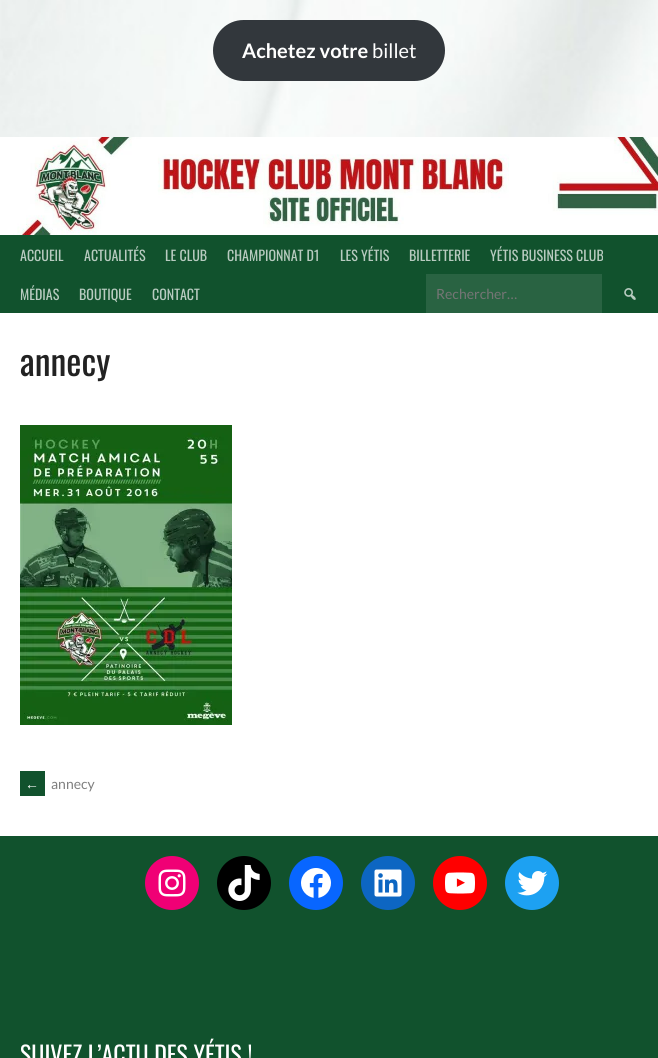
import math
import cairo

surface = cairo.ImageSurface(cairo.FORMAT_RGB24, 658, 1058)
cr = cairo.Context(surface)
options = cairo.FontOptions()
options.set_hint_metrics(cairo.HINT_METRICS_OFF)
options.set_hint_style(cairo.HINT_STYLE_NONE)
cr.set_font_options(options)
cr.set_miter_limit(4)


def rgb(code):
    cr.set_source_rgb(*(v / 255 for v in bytes.fromhex(code[-6:])))


def rrect(x, y, w, h, r):
    cr.new_sub_path()
    for i, (u, v) in enumerate([(x + w - r, y + h - r), (x + r, y + h - r), (x + r, y + r), (x + w - r, y + r)]):
        cr.arc(u, v, r, i * math.pi / 2, (i + 1) * math.pi / 2)
    cr.close_path()


def image(path, x, y, w, h):
    cr.save()
    cr.set_source_surface(cairo.ImageSurface.create_from_png(path), x, y)
    cr.rectangle(x, y, w, h)
    cr.fill()
    cr.restore()


rgb("#ffffff")
cr.paint()
image("img/1.png", 0, 0, 658, 137)
rgb("#32373c")
rrect(213, 20, 232, 61, 30.5)
cr.fill()
image("img/2.png", 0, 137, 658, 98)
rgb("#11522d")
cr.rectangle(0, 235, 658, 78)
cr.fill()
rgb("#296342")
cr.rectangle(426, 274, 176, 39)
cr.fill()
image("img/3.png", 624, 288, 12, 12)
image("img/4.png", 20, 425, 212, 300)
rgb("#11522d")
cr.rectangle(20, 771, 25, 25)
cr.fill()
cr.rectangle(0, 836, 658, 222)
cr.fill()
rgb("#f00075")
cr.arc(172, 883, 27, 0, 2 * math.pi)
cr.fill()
image("img/5.png", 158, 869, 28, 28)
rgb("#000000")
cr.arc(244, 883, 27, 0, 2 * math.pi)
cr.fill()
image("img/6.png", 228, 865, 32, 36)
rgb("#0866ff")
cr.arc(316, 883, 27, 0, 2 * math.pi)
cr.fill()
image("img/7.png", 301, 868, 30, 30)
rgb("#0d66c2")
cr.arc(388, 883, 27, 0, 2 * math.pi)
cr.fill()
image("img/8.png", 374, 869, 28, 28)
rgb("#ff0000")
cr.arc(460, 883, 27, 0, 2 * math.pi)
cr.fill()
image("img/9.png", 445, 872, 30, 22)
rgb("#1da1f2")
cr.arc(532, 883, 27, 0, 2 * math.pi)
cr.fill()
image("img/10.png", 517, 871, 31, 25)
cr.select_font_face("Lato", cairo.FONT_SLANT_NORMAL, cairo.FONT_WEIGHT_BOLD)
cr.set_font_size(20)
rgb("#ffffff")
cr.move_to(242, 58)
cr.show_text("Achetez votre")
cr.select_font_face("Lato")
cr.move_to(372, 58)
cr.show_text("billet")
cr.select_font_face("Oswald")
cr.set_font_size(14)
rgb("#b8cbc0")
for x, y, s in [
    (20, 261, "ACCUEIL"),
    (84, 261, "ACTUALITÉS"),
    (165, 261, "LE CLUB"),
    (227, 261, "CHAMPIONNAT D1"),
    (340, 261, "LES YÉTIS"),
    (409, 261, "BILLETTERIE"),
    (490, 261, "YÉTIS BUSINESS CLUB"),
    (20, 300, "MÉDIAS"),
    (79, 300, "BOUTIQUE"),
    (152, 300, "CONTACT"),
]:
    cr.move_to(x, y)
    cr.show_text(s)
cr.select_font_face("Lato")
rgb("#757575")
cr.move_to(436, 299)
cr.show_text("Rechercher…")
cr.select_font_face("Oswald")
cr.set_font_size(36)
rgb("#222222")
cr.move_to(20, 376)
cr.show_text("annecy")
cr.select_font_face("Liberation Sans")
cr.set_font_size(14)
rgb("#ffffff")
cr.move_to(25, 789)
cr.show_text("←")
cr.select_font_face("Lato")
rgb("#7f7f7f")
cr.move_to(51, 789)
cr.show_text("annecy")
cr.select_font_face("Oswald")
cr.set_font_size(24)
rgb("#ffffff")
cr.move_to(20, 1064)
cr.show_text("SUIVEZ L’ACTU DES YÉTIS !")
surface.write_to_png("page.png")
